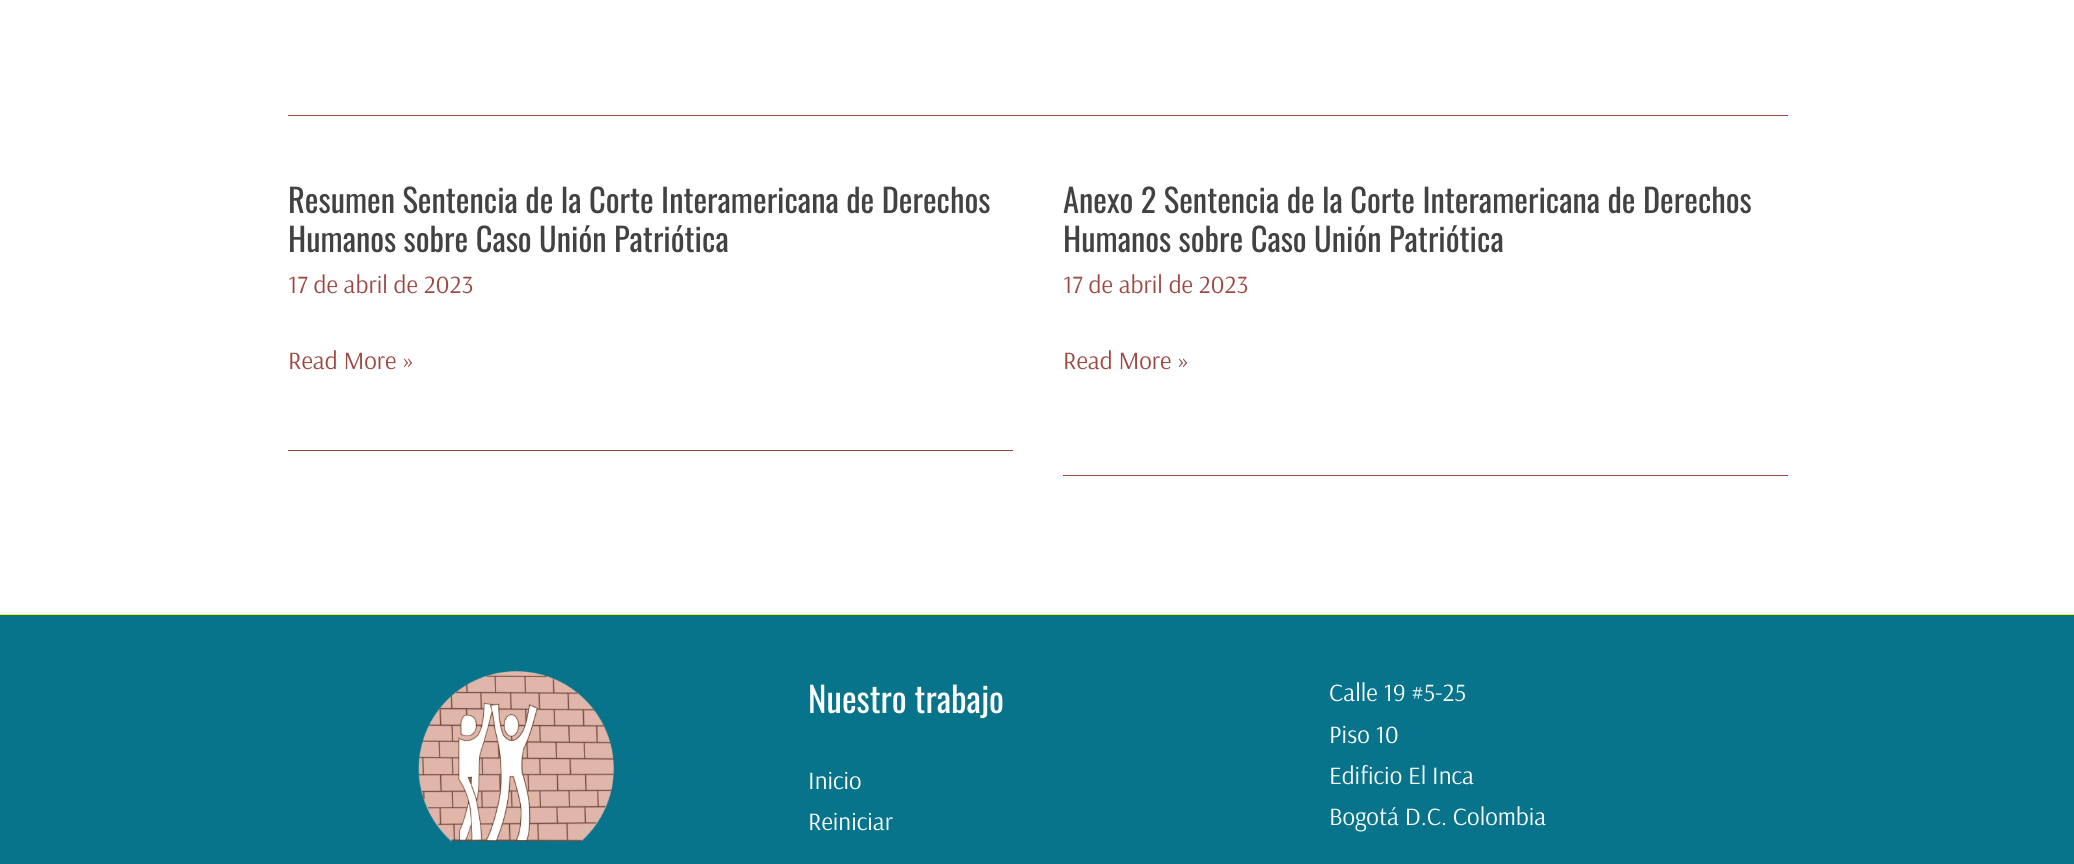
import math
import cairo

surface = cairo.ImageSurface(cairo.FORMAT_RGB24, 2074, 864)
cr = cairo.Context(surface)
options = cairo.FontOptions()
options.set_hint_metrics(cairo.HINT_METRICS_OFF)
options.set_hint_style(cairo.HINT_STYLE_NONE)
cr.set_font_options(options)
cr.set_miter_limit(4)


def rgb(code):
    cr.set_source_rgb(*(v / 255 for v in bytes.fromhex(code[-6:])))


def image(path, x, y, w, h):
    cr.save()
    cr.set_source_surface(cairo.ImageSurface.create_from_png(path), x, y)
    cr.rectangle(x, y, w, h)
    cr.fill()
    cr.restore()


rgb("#ffffff")
cr.paint()
for x, y, w, h, color in [
    (288, 115, 1500, 1, "#9c4841"),
    (288, 450, 725, 1, "#9c4841"),
    (1063, 475, 725, 1, "#9c4841"),
    (0, 615, 2074, 249, "#07748c"),
    (0, 614, 2074, 1, "#f7f700"),
]:
    rgb(color)
    cr.rectangle(x, y, w, h)
    cr.fill()
image("img/1.png", 418, 671, 196, 171)
cr.select_font_face("Oswald")
cr.set_font_size(32.5)
rgb("#424242")
cr.move_to(288, 213)
cr.show_text("Resumen Sentencia de la Corte Interamericana de Derechos")
cr.move_to(288, 252)
cr.show_text("Humanos sobre Caso Unión Patriótica")
cr.select_font_face("Arsenal")
cr.set_font_size(25)
rgb("#9c4841")
cr.move_to(288, 293)
cr.show_text("17 de abril de 2023")
cr.move_to(288, 369)
cr.show_text("Read More »")
cr.select_font_face("Oswald")
cr.set_font_size(32.5)
rgb("#424242")
cr.move_to(1063, 213)
cr.show_text("Anexo 2 Sentencia de la Corte Interamericana de Derechos")
cr.move_to(1063, 252)
cr.show_text("Humanos sobre Caso Unión Patriótica")
cr.select_font_face("Arsenal")
cr.set_font_size(25)
rgb("#9c4841")
cr.move_to(1063, 293)
cr.show_text("17 de abril de 2023")
cr.move_to(1063, 369)
cr.show_text("Read More »")
cr.select_font_face("Oswald")
cr.set_font_size(35)
rgb("#ffffff")
cr.move_to(808, 713)
cr.show_text("Nuestro trabajo")
cr.select_font_face("Arsenal")
cr.set_font_size(25)
for x, y, s in [
    (808, 789, "Inicio"),
    (808, 830, "Reiniciar"),
    (1329, 701, "Calle 19 #5-25"),
    (1329, 743, "Piso 10"),
    (1329, 784, "Edificio El Inca"),
    (1329, 825, "Bogotá D.C. Colombia"),
]:
    cr.move_to(x, y)
    cr.show_text(s)
surface.write_to_png("page.png")
